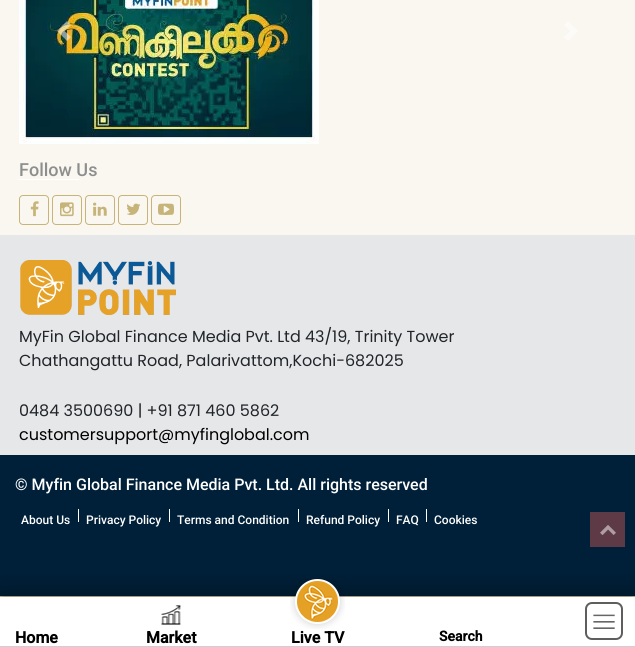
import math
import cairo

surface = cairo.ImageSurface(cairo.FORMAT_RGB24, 635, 647)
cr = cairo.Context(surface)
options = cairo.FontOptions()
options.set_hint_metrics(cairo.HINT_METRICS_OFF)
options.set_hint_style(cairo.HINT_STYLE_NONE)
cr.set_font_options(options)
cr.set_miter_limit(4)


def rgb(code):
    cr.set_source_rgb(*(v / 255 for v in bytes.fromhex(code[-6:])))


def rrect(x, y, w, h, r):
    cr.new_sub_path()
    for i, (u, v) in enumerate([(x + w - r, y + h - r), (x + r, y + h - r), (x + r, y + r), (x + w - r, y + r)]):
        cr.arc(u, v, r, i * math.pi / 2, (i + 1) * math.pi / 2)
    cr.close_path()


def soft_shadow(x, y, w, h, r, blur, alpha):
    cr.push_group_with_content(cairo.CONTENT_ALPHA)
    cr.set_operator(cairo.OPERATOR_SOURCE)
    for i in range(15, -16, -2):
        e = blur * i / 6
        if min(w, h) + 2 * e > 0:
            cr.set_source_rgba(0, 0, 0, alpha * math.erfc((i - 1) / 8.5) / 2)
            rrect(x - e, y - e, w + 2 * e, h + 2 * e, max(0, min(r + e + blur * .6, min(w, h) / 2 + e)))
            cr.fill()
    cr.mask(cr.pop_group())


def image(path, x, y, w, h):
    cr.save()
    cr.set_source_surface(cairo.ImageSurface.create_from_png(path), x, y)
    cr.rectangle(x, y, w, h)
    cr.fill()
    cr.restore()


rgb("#faf7f1")
cr.paint()
image("img/1.png", 19, 0, 300, 144)
cr.set_source_rgba(1, 1, 1, 0.5)
cr.new_path()
cr.move_to(67, 21)
cr.line_to(57, 31)
cr.line_to(67, 41)
cr.line_to(71, 37)
cr.line_to(64.5, 31)
cr.line_to(71, 25)
cr.close_path()
cr.fill()
rgb("#fdfbf8")
cr.new_path()
cr.move_to(568, 21)
cr.line_to(564, 25)
cr.line_to(570.5, 31)
cr.line_to(564, 37)
cr.line_to(568, 41)
cr.line_to(578, 31)
cr.close_path()
cr.fill()
rgb("#ffffff")
cr.rectangle(19, 179, 60, 1)
cr.fill()
rrect(19.5, 195.5, 29, 29, 3.5)
rgb("#c6b479")
cr.set_line_width(1)
cr.stroke()
image("img/2.png", 30, 201, 9, 16)
rrect(52.5, 195.5, 29, 29, 3.5)
cr.stroke()
image("img/3.png", 60, 202, 14, 15)
rrect(85.5, 195.5, 29, 29, 3.5)
cr.stroke()
image("img/4.png", 93, 202, 14, 14)
rrect(118.5, 195.5, 29, 29, 3.5)
cr.stroke()
image("img/5.png", 126, 203, 15, 12)
rrect(151.5, 195.5, 29, 29, 3.5)
cr.stroke()
image("img/6.png", 158, 203, 16, 12)
rgb("#e6e7e9")
cr.rectangle(0, 235, 635, 220)
cr.fill()
image("img/7.png", 20, 260, 156, 55)
for x, y, w, h, color in [
    (0, 455, 635, 141, "#002039"),
    (78, 509, 1, 13, "#ffffff"),
    (169, 509, 1, 13, "#ffffff"),
    (298, 509, 1, 13, "#ffffff"),
    (388, 509, 1, 13, "#ffffff"),
    (426, 509, 1, 13, "#ffffff"),
    (0, 596, 635, 1, "#dcd1ae"),
]:
    rgb(color)
    cr.rectangle(x, y, w, h)
    cr.fill()
rgb("#000000")
soft_shadow(0, 597, 635, 50, 0, 15, 0.5)
rgb("#ffffff")
cr.rectangle(0, 597, 635, 49)
cr.fill()
rgb("#d0d0d0")
cr.rectangle(0, 646, 635, 1)
cr.fill()
image("img/8.png", 161, 605, 20, 20)
image("img/9.png", 290, 578, 55, 51)
rrect(586, 603, 36, 36, 6)
rgb("#5e5e5e")
cr.set_line_width(2)
cr.stroke()
image("img/10.png", 593, 614, 22, 15)
rgb("#5d3a45")
cr.rectangle(590, 512, 35, 35)
cr.fill()
image("img/11.png", 600, 525, 16, 10)
cr.select_font_face("Roboto Medium")
cr.set_font_size(18)
rgb("#8e8e8e")
cr.move_to(19, 176)
cr.show_text("Follow Us")
cr.select_font_face("Poppins")
cr.set_font_size(16)
rgb("#212529")
for x, y, s in [
    (19, 342, "MyFin Global Finance Media Pvt. Ltd 43/19, Trinity Tower"),
    (19, 366, "Chathangattu Road, Palarivattom,Kochi-682025"),
    (19, 416, "0484 3500690 | +91 871 460 5862"),
]:
    cr.move_to(x, y)
    cr.show_text(s)
rgb("#000000")
cr.move_to(19, 440)
cr.show_text("customersupport@myfinglobal.com")
cr.select_font_face("Roboto Medium")
rgb("#ffffff")
cr.move_to(15, 490)
cr.show_text("© Myfin Global Finance Media Pvt. Ltd. All rights reserved")
cr.set_font_size(12)
for x, y, s in [
    (21, 524, "About Us"),
    (86, 524, "Privacy Policy"),
    (177, 524, "Terms and Condition"),
    (306, 524, "Refund Policy"),
    (396, 524, "FAQ"),
    (434, 524, "Cookies"),
]:
    cr.move_to(x, y)
    cr.show_text(s)
cr.select_font_face("Roboto", cairo.FONT_SLANT_NORMAL, cairo.FONT_WEIGHT_BOLD)
cr.set_font_size(16)
rgb("#000000")
for x, y, s in [
    (15, 643, "Home"),
    (146, 643, "Market"),
    (291, 643, "Live TV"),
]:
    cr.move_to(x, y)
    cr.show_text(s)
cr.set_font_size(14)
cr.move_to(439, 641)
cr.show_text("Search")
surface.write_to_png("page.png")
